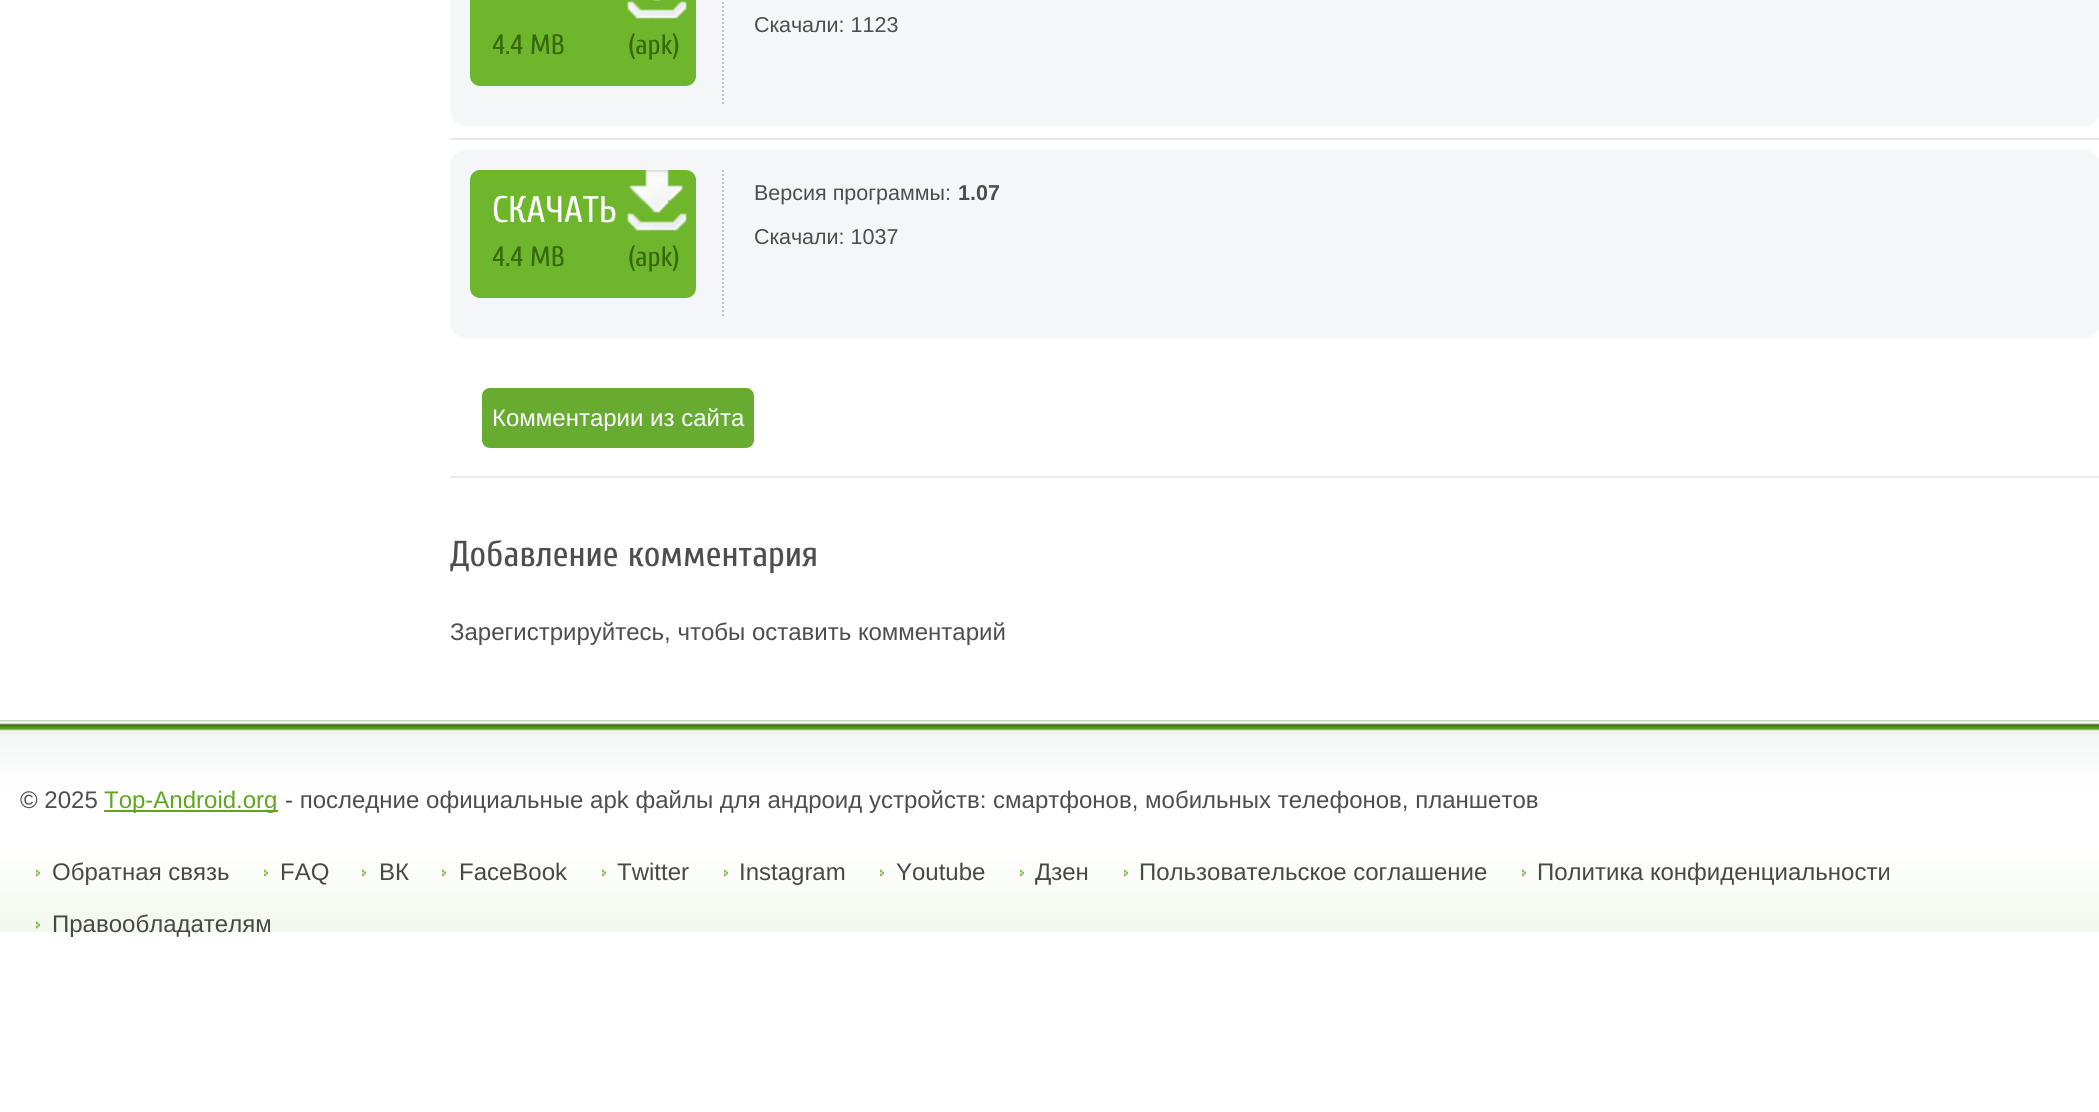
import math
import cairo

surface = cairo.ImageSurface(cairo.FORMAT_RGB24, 2099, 1112)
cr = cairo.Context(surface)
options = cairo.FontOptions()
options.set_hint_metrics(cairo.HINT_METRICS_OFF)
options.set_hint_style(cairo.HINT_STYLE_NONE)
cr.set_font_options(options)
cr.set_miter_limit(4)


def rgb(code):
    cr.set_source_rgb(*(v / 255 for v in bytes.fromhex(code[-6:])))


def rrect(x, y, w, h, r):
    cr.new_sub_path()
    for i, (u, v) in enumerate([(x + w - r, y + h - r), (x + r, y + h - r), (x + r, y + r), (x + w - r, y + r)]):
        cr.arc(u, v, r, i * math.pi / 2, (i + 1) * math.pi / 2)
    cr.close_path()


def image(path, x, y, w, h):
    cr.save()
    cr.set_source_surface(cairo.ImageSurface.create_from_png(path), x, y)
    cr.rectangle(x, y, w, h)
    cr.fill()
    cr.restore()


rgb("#ffffff")
cr.paint()
rgb("#f5f6f7")
rrect(450, -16, 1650, 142, 16)
cr.fill()
cr.new_path()
cr.move_to(723, -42)
cr.line_to(723, 106)
rgb("#c2c3c4")
cr.set_dash([2, 2])
cr.stroke()
rgb("#6eb72d")
rrect(470, -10, 226, 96, 10)
cr.fill()
image("img/1.png", 626, 0, 61, 20)
rgb("#e9e9ea")
cr.rectangle(450, 138, 1649, 2)
cr.fill()
rgb("#f5f6f7")
rrect(450, 150, 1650, 188, 16)
cr.fill()
rgb("#6eb72d")
rrect(470, 170, 226, 128, 10)
cr.fill()
image("img/2.png", 626, 170, 61, 62)
cr.new_path()
cr.move_to(723, 170)
cr.line_to(723, 318)
rgb("#c2c3c4")
cr.stroke()
rgb("#e9ebec")
cr.rectangle(450, 476, 1649, 2)
cr.fill()
rgb("#67ab30")
rrect(482, 388, 272, 60, 8)
cr.fill()
image("img/3.png", 0, 720, 2099, 213)
rgb("#5ea61d")
cr.rectangle(104, 810, 174, 2)
cr.fill()
image("img/4.png", 36, 869, 4, 8)
image("img/4.png", 264, 869, 4, 8)
image("img/4.png", 362, 869, 4, 8)
image("img/4.png", 442, 869, 4, 8)
image("img/4.png", 602, 869, 4, 8)
image("img/4.png", 724, 869, 4, 8)
image("img/4.png", 880, 869, 4, 8)
image("img/4.png", 1020, 869, 4, 8)
image("img/4.png", 1124, 869, 4, 8)
image("img/4.png", 1522, 869, 4, 8)
image("img/5.png", 36, 921, 4, 8)
cr.select_font_face("Liberation Sans")
cr.set_font_size(21.5)
rgb("#4e4e4e")
cr.move_to(754, 32)
cr.show_text("Скачали: 1123")
cr.select_font_face("Cuprum")
cr.set_font_size(28)
rgb("#38680c")
cr.move_to(492, 54)
cr.show_text("4.4 MB")
cr.move_to(628, 54)
cr.show_text("(apk)")
cr.set_font_size(37)
rgb("#ffffff")
cr.move_to(492, 222)
cr.show_text("СКАЧАТЬ")
cr.set_font_size(28)
rgb("#38680c")
cr.move_to(492, 266)
cr.show_text("4.4 MB")
cr.move_to(628, 266)
cr.show_text("(apk)")
cr.select_font_face("Liberation Sans")
cr.set_font_size(21.5)
rgb("#4e4e4e")
cr.move_to(754, 200)
cr.show_text("Версия программы:")
cr.select_font_face("Liberation Sans", cairo.FONT_SLANT_NORMAL, cairo.FONT_WEIGHT_BOLD)
cr.move_to(958, 200)
cr.show_text("1.07")
cr.select_font_face("Liberation Sans")
cr.move_to(754, 244)
cr.show_text("Скачали: 1037")
cr.set_font_size(24)
rgb("#ffffff")
cr.move_to(492, 426)
cr.show_text("Комментарии из сайта")
cr.select_font_face("Cuprum")
cr.set_font_size(36)
rgb("#4e4e4e")
cr.move_to(450, 566)
cr.show_text("Добавление комментария")
cr.select_font_face("Liberation Sans")
cr.set_font_size(24)
cr.move_to(450, 640)
cr.show_text("Зарегистрируйтесь, чтобы оставить комментарий")
cr.move_to(20, 808)
cr.show_text("© 2025")
rgb("#5ea61d")
cr.move_to(104, 808)
cr.show_text("Top-Android.org")
rgb("#4e4e4e")
cr.move_to(285, 808)
cr.show_text("- последние официальные apk файлы для андроид устройств: смартфонов, мобильных телефонов, планшетов")
rgb("#484848")
for x, y, s in [
    (52, 880, "Обратная связь"),
    (280, 880, "FAQ"),
    (379, 880, "ВК"),
    (459, 880, "FaceBook"),
    (617, 880, "Twitter"),
    (739, 880, "Instagram"),
    (896, 880, "Youtube"),
    (1035, 880, "Дзен"),
    (1139, 880, "Пользовательское соглашение"),
    (1537, 880, "Политика конфиденциальности"),
    (52, 932, "Правообладателям"),
]:
    cr.move_to(x, y)
    cr.show_text(s)
surface.write_to_png("page.png")
